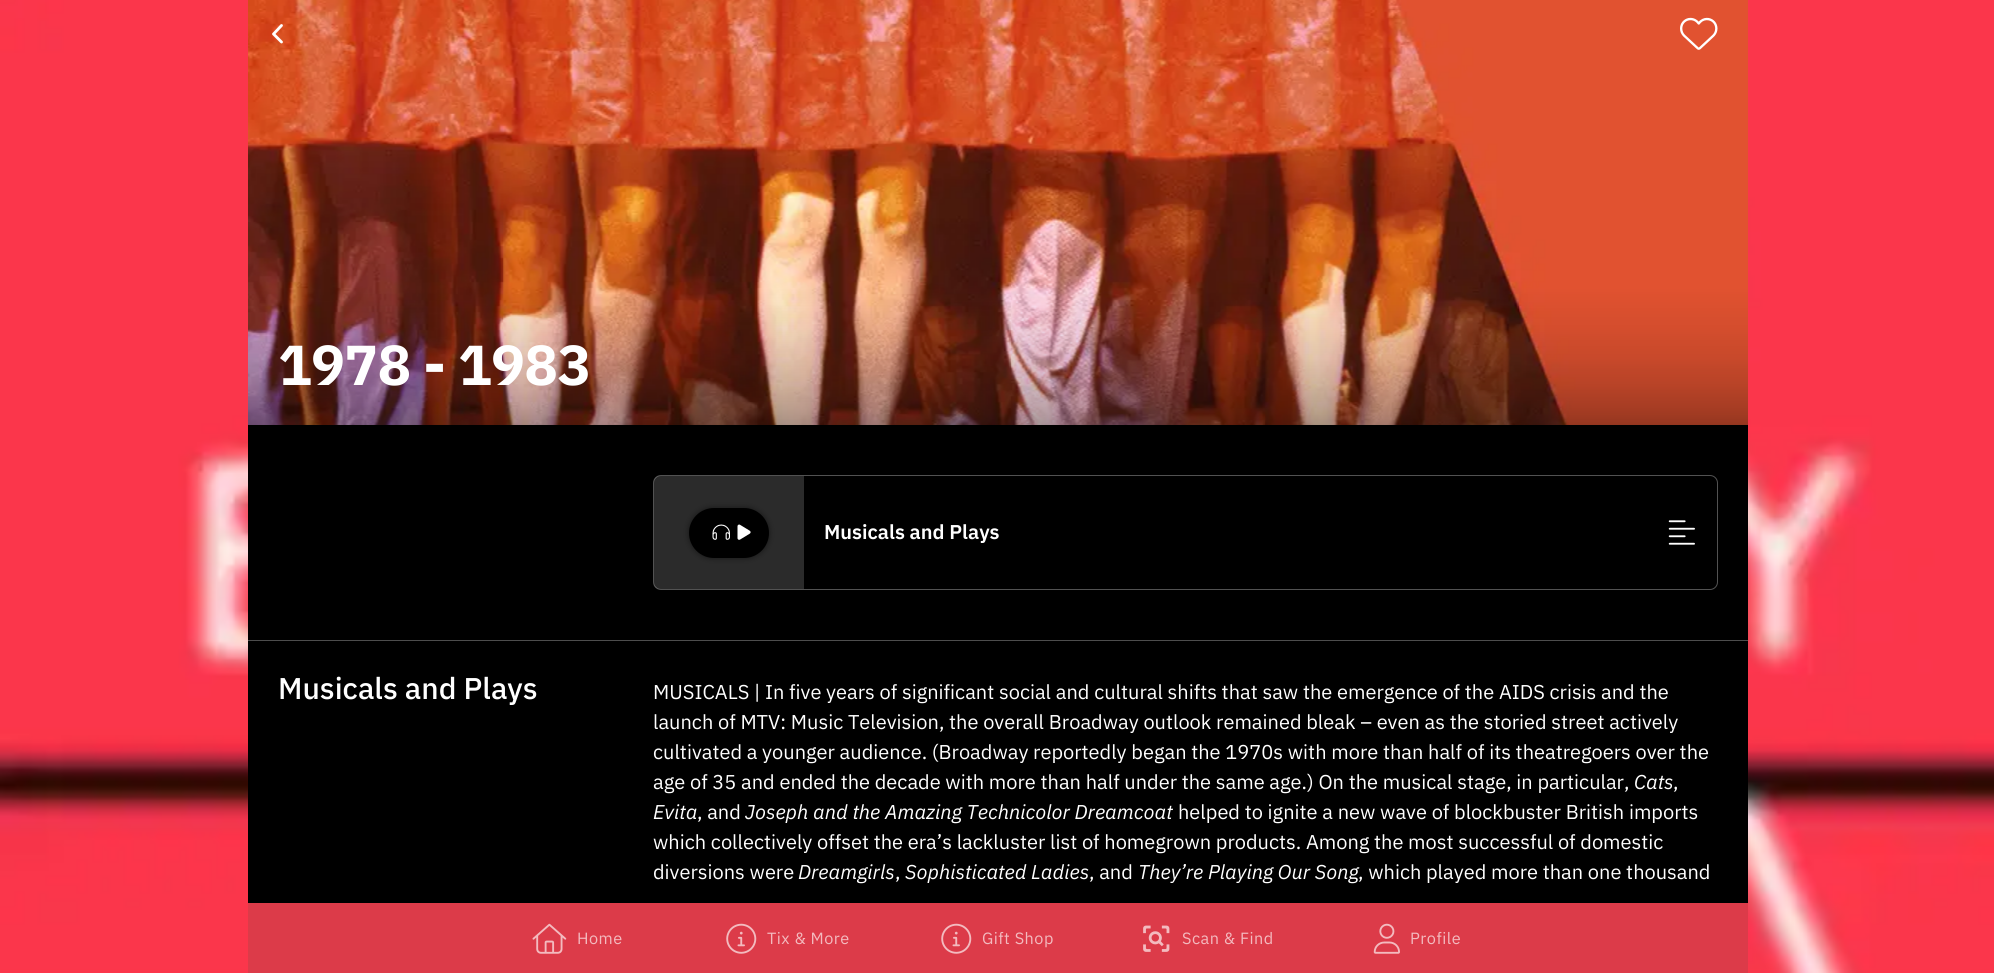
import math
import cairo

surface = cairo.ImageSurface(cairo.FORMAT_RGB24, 1994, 973)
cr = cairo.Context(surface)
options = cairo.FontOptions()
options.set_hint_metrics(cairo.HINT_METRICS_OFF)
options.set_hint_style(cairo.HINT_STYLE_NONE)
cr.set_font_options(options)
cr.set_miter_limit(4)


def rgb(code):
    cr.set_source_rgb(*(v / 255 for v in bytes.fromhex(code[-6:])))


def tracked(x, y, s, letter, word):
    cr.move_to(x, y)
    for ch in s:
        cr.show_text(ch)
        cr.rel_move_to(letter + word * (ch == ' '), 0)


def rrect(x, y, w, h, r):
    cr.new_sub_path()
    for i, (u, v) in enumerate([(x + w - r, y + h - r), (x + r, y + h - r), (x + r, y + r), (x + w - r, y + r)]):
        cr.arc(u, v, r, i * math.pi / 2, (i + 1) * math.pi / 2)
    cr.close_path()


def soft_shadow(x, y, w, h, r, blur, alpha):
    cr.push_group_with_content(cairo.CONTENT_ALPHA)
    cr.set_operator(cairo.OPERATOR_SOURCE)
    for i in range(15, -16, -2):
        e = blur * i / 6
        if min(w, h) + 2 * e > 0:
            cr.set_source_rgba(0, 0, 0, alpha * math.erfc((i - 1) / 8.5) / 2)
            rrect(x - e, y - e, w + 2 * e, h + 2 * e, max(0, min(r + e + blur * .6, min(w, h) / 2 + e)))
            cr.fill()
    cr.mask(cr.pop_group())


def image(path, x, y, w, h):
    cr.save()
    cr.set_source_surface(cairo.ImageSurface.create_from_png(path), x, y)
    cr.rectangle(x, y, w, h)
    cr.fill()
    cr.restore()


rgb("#ffffff")
cr.paint()
image("img/1.png", 0, 969, 1994, 4)
image("img/2.png", 0, 0, 1994, 973)
rgb("#000000")
cr.rectangle(248, 425, 1500, 478)
cr.fill()
image("img/3.png", 248, 0, 1500, 425)
cr.new_path()
cr.move_to(281.5, 25.5)
cr.line_to(273.5, 34)
cr.line_to(281.5, 42)
rgb("#ffffff")
cr.set_line_width(2.8)
cr.set_line_cap(cairo.LINE_CAP_ROUND)
cr.set_line_join(cairo.LINE_JOIN_ROUND)
cr.stroke()
image("img/4.png", 1680, 17, 38, 33)
rrect(653.5, 475.5, 1064, 114, 7.5)
rgb("#525252")
cr.set_line_width(1)
cr.set_line_cap(cairo.LINE_CAP_BUTT)
cr.set_line_join(cairo.LINE_JOIN_MITER)
cr.stroke()
cr.set_source_rgba(1, 1, 1, 0.17)
cr.new_path()
cr.move_to(660, 476)
cr.line_to(804, 476)
cr.line_to(804, 589)
cr.line_to(660, 589)
cr.curve_to(656.5, 589, 654, 586.5, 654, 583)
cr.line_to(654, 482)
cr.curve_to(654, 478.5, 656.5, 476, 660, 476)
cr.close_path()
cr.fill()
rgb("#000000")
soft_shadow(689, 508, 80, 50, 25, 3, 0.5)
rgb("#000000")
rrect(689, 508, 80, 50, 25)
cr.fill()
image("img/5.png", 712, 524, 18, 16)
image("img/6.png", 737, 524, 14, 16)
image("img/7.png", 1668, 520, 27, 25)
rgb("#4d4d4d")
cr.rectangle(248, 640, 1500, 1)
cr.fill()
rgb("#dc3b49")
cr.rectangle(248, 903, 1500, 70)
cr.fill()
image("img/8.png", 532, 923, 35, 31)
image("img/9.png", 726, 923, 31, 31)
image("img/9.png", 941, 923, 31, 31)
image("img/10.png", 1143, 925, 27, 27)
image("img/11.png", 1373, 923, 27, 31)
cr.select_font_face("IBM Plex Sans", cairo.FONT_SLANT_NORMAL, cairo.FONT_WEIGHT_BOLD)
cr.set_font_size(56.25)
rgb("#ffffff")
tracked(278, 385, "1978 - 1983", -0.6, 0)
cr.select_font_face("IBM Plex Sans SemiBold")
cr.set_font_size(20)
cr.move_to(824, 539)
cr.show_text("Musicals and Plays")
cr.select_font_face("IBM Plex Sans Medium")
cr.set_font_size(30)
cr.move_to(278, 699)
cr.show_text("Musicals and Plays")
cr.select_font_face("IBM Plex Sans")
cr.set_font_size(20)
for x, y, s in [
    (653, 699, "MUSICALS | In five years of significant social and cultural shifts that saw the emergence of the AIDS crisis and the"),
    (653, 729, "launch of MTV: Music Television, the overall Broadway outlook remained bleak – even as the storied street actively"),
    (653, 759, "cultivated a younger audience. (Broadway reportedly began the 1970s with more than half of its theatregoers over the"),
    (653, 789, "age of 35 and ended the decade with more than half under the same age.) On the musical stage, in particular,"),
]:
    cr.move_to(x, y)
    cr.show_text(s)
cr.select_font_face("IBM Plex Sans", cairo.FONT_SLANT_ITALIC)
cr.move_to(1634, 789)
cr.show_text("Cats")
cr.select_font_face("IBM Plex Sans")
cr.move_to(1673, 789)
cr.show_text(",")
cr.select_font_face("IBM Plex Sans", cairo.FONT_SLANT_ITALIC)
cr.move_to(653, 819)
cr.show_text("Evita")
cr.select_font_face("IBM Plex Sans")
cr.move_to(697, 819)
cr.show_text(", and")
cr.select_font_face("IBM Plex Sans", cairo.FONT_SLANT_ITALIC)
cr.move_to(745, 819)
cr.show_text("Joseph and the Amazing Technicolor Dreamcoat")
cr.select_font_face("IBM Plex Sans")
for x, y, s in [
    (1178, 819, "helped to ignite a new wave of blockbuster British imports"),
    (653, 849, "which collectively offset the era’s lackluster list of homegrown products. Among the most successful of domestic"),
    (653, 879, "diversions were"),
]:
    cr.move_to(x, y)
    cr.show_text(s)
cr.select_font_face("IBM Plex Sans", cairo.FONT_SLANT_ITALIC)
cr.move_to(798, 879)
cr.show_text("Dreamgirls")
cr.select_font_face("IBM Plex Sans")
cr.move_to(895, 879)
cr.show_text(",")
cr.select_font_face("IBM Plex Sans", cairo.FONT_SLANT_ITALIC)
cr.move_to(905, 879)
cr.show_text("Sophisticated Ladies")
cr.select_font_face("IBM Plex Sans")
cr.move_to(1089, 879)
cr.show_text(", and")
cr.select_font_face("IBM Plex Sans", cairo.FONT_SLANT_ITALIC)
cr.move_to(1138, 879)
cr.show_text("They’re Playing Our Song")
cr.select_font_face("IBM Plex Sans")
cr.move_to(1358, 879)
cr.show_text(", which played more than one thousand")
cr.set_font_size(16.25)
rgb("#f3babf")
for x, y, s in [
    (577, 944, "Home"),
    (767, 944, "Tix & More"),
    (982, 944, "Gift Shop"),
    (1182, 944, "Scan & Find"),
    (1410, 944, "Profile"),
]:
    tracked(x, y, s, 0.5, 0)
surface.write_to_png("page.png")
